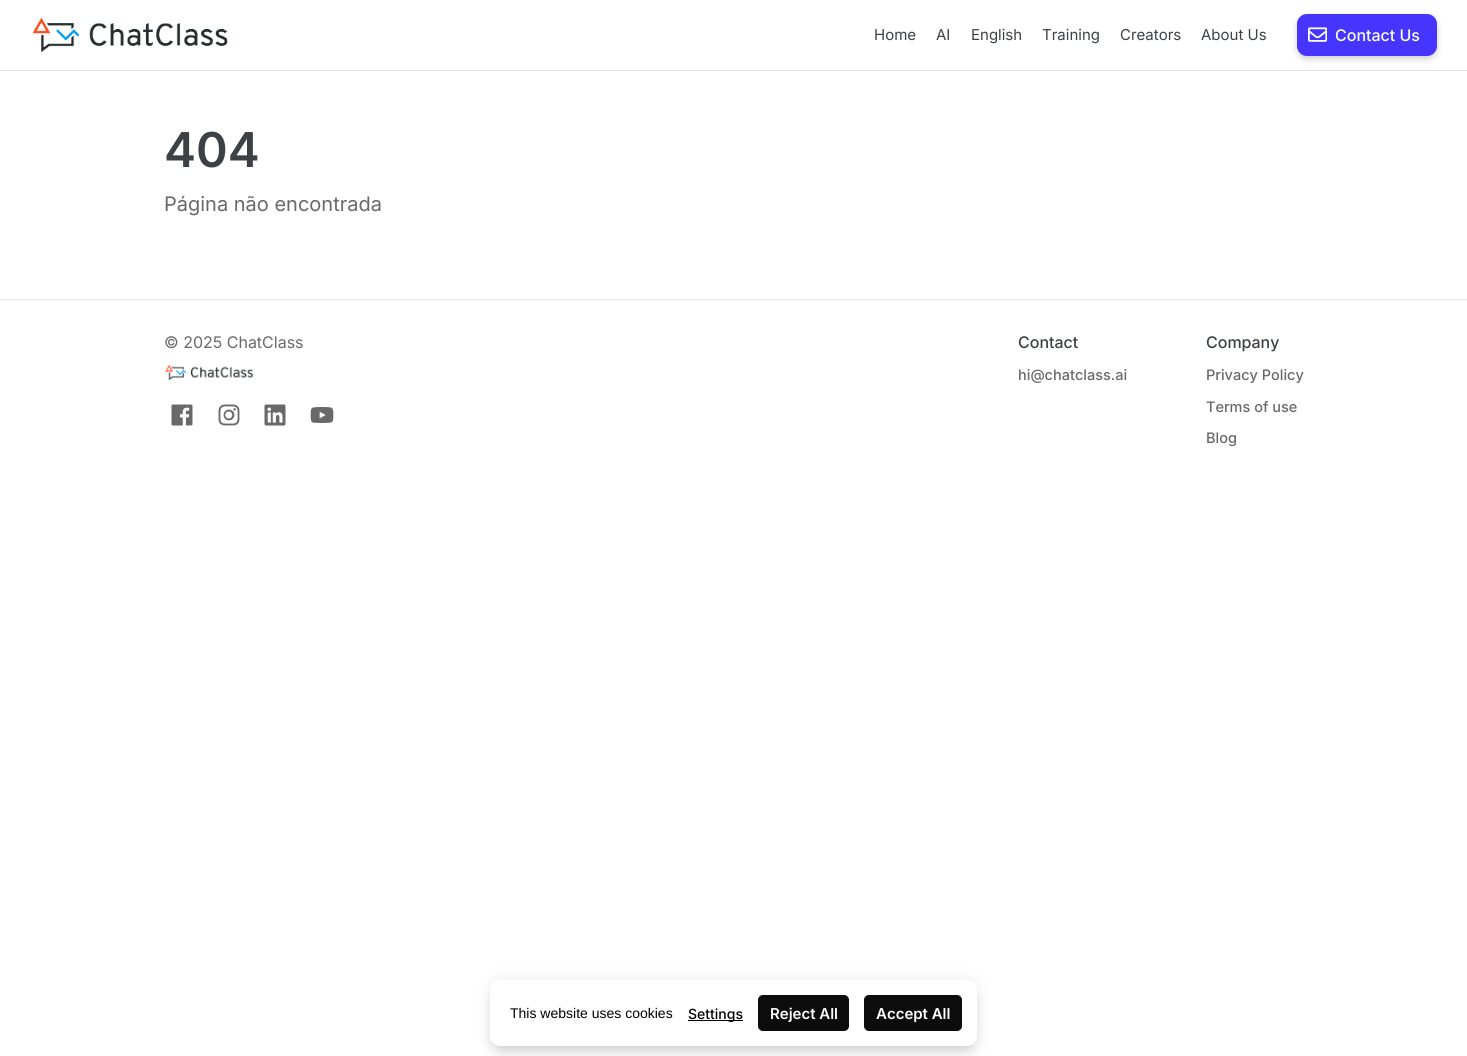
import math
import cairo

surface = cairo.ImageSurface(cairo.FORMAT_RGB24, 1467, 1056)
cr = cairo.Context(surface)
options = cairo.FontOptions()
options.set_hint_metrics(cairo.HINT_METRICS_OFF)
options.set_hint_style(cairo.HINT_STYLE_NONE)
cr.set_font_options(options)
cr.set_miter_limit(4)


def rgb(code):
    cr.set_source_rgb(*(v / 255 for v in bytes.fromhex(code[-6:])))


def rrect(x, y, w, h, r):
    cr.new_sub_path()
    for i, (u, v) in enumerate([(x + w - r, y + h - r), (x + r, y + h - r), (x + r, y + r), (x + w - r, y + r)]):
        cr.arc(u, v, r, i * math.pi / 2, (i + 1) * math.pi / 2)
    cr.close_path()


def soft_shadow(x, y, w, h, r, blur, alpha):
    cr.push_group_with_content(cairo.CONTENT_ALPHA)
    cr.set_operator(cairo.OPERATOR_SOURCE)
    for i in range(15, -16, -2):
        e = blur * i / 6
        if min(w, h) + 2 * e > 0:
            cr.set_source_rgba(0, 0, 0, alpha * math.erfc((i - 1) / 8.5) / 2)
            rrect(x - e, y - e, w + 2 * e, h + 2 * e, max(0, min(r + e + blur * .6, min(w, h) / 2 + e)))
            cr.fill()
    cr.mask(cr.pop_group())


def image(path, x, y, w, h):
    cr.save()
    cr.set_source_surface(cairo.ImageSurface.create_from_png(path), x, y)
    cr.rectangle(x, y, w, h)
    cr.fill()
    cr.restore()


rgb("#ffffff")
cr.paint()
rgb("#e5e5e5")
cr.rectangle(0, 70, 1467, 1)
cr.fill()
image("img/1.png", 32, 17, 196, 35)
rgb("#000000")
soft_shadow(1297, 17, 140, 42, 10, 3.5, 0.19)
rgb("#4635ff")
rrect(1297, 14, 140, 42, 10)
cr.fill()
image("img/2.png", 1308, 27, 19, 15)
rgb("#e5e5e5")
cr.rectangle(0, 299, 1467, 1)
cr.fill()
image("img/3.png", 165, 365, 89, 16)
image("img/4.png", 171, 404, 22, 22)
image("img/5.png", 218, 404, 22, 22)
image("img/6.png", 264, 404, 22, 22)
image("img/7.png", 310, 407, 24, 16)
rgb("#000000")
soft_shadow(490, 978, 487, 66, 10, 8.5, 0.06)
soft_shadow(495, 994, 477, 56, 5, 7.5, 0.2)
rgb("#ffffff")
rrect(490, 980, 487, 66, 10)
cr.fill()
rgb("#000000")
cr.rectangle(688, 1020, 55, 1)
cr.fill()
rgb("#0c0c0c")
rrect(758.5, 995.5, 90, 35, 4.5)
cr.fill_preserve()
cr.set_line_width(1)
cr.stroke()
rrect(864.5, 995.5, 97, 35, 4.5)
cr.fill_preserve()
cr.stroke()
cr.select_font_face("Inter")
cr.set_font_size(15)
rgb("#3d4145")
for x, y, s in [
    (874, 40, "Home"),
    (936, 40, "AI"),
    (971, 40, "English"),
    (1042, 40, "Training"),
    (1120, 40, "Creators"),
    (1201, 40, "About Us"),
]:
    cr.move_to(x, y)
    cr.show_text(s)
cr.select_font_face("Inter Medium")
cr.set_font_size(16)
rgb("#fdfdfd")
cr.move_to(1335, 41)
cr.show_text("Contact Us")
cr.select_font_face("Inter SemiBold")
cr.set_font_size(48)
rgb("#3d4145")
cr.move_to(164, 167)
cr.show_text("404")
cr.select_font_face("Inter")
cr.set_font_size(20)
rgb("#696969")
cr.move_to(164, 211)
cr.show_text("Página não encontrada")
cr.set_font_size(16)
cr.move_to(164, 348)
cr.show_text("© 2025 ChatClass")
cr.select_font_face("Inter Medium")
rgb("#3d4145")
cr.move_to(1018, 348)
cr.show_text("Contact")
cr.set_font_size(14.5)
rgb("#696969")
cr.move_to(1018, 380)
cr.show_text("hi@chatclass.ai")
cr.set_font_size(16)
rgb("#3d4145")
cr.move_to(1206, 348)
cr.show_text("Company")
cr.set_font_size(14.5)
rgb("#696969")
for x, y, s in [
    (1206, 380, "Privacy Policy"),
    (1206, 412, "Terms of use"),
    (1206, 443, "Blog"),
]:
    cr.move_to(x, y)
    cr.show_text(s)
cr.select_font_face("Liberation Sans")
cr.set_font_size(14)
rgb("#000000")
cr.move_to(510, 1018)
cr.show_text("This website uses cookies")
cr.select_font_face("Inter Medium")
cr.move_to(688, 1019)
cr.show_text("Settings")
cr.select_font_face("Inter SemiBold")
cr.set_font_size(15)
rgb("#fdfdfd")
cr.move_to(770, 1019)
cr.show_text("Reject All")
cr.move_to(876, 1019)
cr.show_text("Accept All")
surface.write_to_png("page.png")
